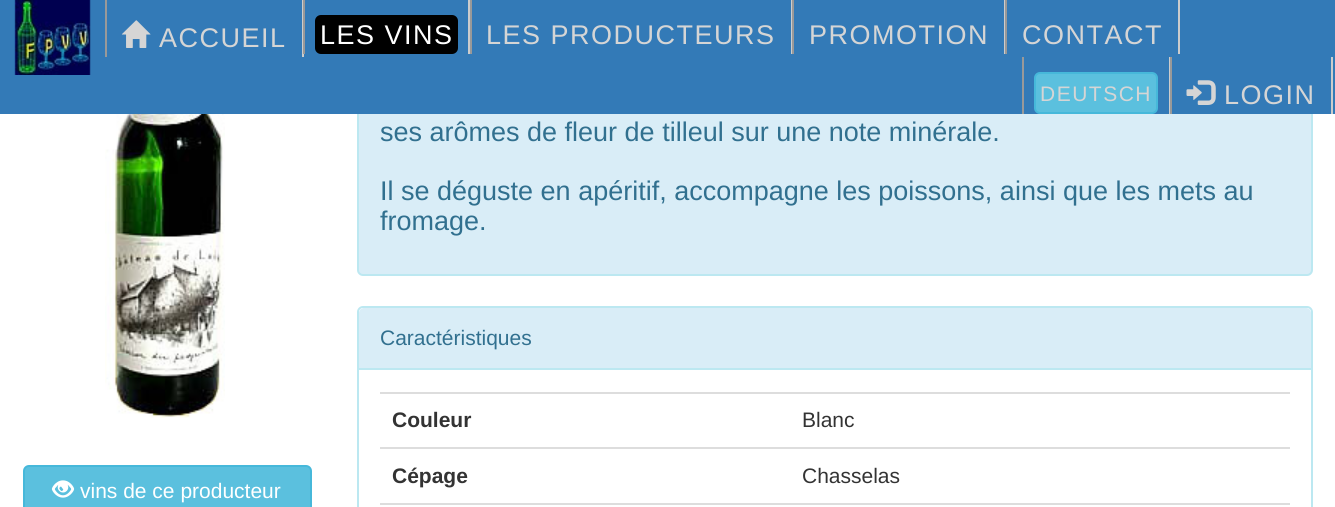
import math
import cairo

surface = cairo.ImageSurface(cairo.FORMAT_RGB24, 1335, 507)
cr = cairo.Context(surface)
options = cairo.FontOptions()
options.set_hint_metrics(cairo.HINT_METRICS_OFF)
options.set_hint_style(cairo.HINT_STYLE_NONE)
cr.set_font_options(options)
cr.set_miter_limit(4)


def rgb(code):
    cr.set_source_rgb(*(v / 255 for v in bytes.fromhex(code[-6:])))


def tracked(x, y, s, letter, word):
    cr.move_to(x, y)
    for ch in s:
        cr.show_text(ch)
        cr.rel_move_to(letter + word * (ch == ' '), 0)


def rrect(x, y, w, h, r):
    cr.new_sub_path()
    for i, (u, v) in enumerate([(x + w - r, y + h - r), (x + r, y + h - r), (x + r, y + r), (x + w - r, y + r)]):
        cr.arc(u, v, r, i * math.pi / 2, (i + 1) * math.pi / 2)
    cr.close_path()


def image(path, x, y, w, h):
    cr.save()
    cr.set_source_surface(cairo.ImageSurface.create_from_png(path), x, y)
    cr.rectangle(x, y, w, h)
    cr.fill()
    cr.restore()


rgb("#ffffff")
cr.paint()
rgb("#d9edf7")
rrect(358, -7, 954, 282, 5)
cr.fill_preserve()
rgb("#bce8f1")
cr.stroke()
rgb("#337ab7")
cr.rectangle(0, 0, 1335, 114)
cr.fill()
image("img/1.png", 14, 0, 77, 75)
rgb("#cccccc")
cr.rectangle(302, 0, 2, 57)
cr.fill()
rgb("#999999")
cr.rectangle(105, 0, 2, 57)
cr.fill()
image("img/2.png", 121, 20, 30, 28)
rgb("#cccccc")
cr.rectangle(468, 0, 2, 54)
cr.fill()
rgb("#999999")
cr.rectangle(303, 0, 2, 54)
cr.fill()
rgb("#000000")
rrect(315, 15, 143, 39, 6)
cr.fill()
for x, y, w, h, color in [
    (791, 0, 1, 54, "#cccccc"),
    (470, 0, 2, 54, "#999999"),
    (1004, 0, 1, 54, "#cccccc"),
    (792, 0, 2, 54, "#999999"),
    (1178, 0, 2, 54, "#cccccc"),
    (1005, 0, 2, 54, "#999999"),
    (1169, 57, 1, 57, "#cccccc"),
    (1022, 57, 2, 57, "#999999"),
]:
    rgb(color)
    cr.rectangle(x, y, w, h)
    cr.fill()
rgb("#5bc0de")
rrect(1035, 73, 122, 40, 5)
cr.fill_preserve()
rgb("#46b8da")
cr.stroke()
rgb("#cccccc")
cr.rectangle(1331, 57, 2, 57)
cr.fill()
rgb("#999999")
cr.rectangle(1170, 57, 2, 57)
cr.fill()
image("img/3.png", 1186, 80, 30, 25)
rrect(358, 307, 954, 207, 5)
rgb("#bce8f1")
cr.stroke()
rgb("#d9edf7")
cr.new_path()
cr.move_to(364, 308)
cr.line_to(1306, 308)
cr.curve_to(1309, 308, 1311, 310, 1311, 313)
cr.line_to(1311, 369)
cr.line_to(359, 369)
cr.line_to(359, 313)
cr.curve_to(359, 310, 361, 308, 364, 308)
cr.close_path()
cr.fill()
for x, y, w, h, color in [
    (359, 368, 952, 2, "#bce8f1"),
    (380, 392, 910, 2, "#dddddd"),
    (380, 447, 910, 2, "#dddddd"),
    (380, 503, 910, 2, "#dddddd"),
]:
    rgb(color)
    cr.rectangle(x, y, w, h)
    cr.fill()
image("img/4.png", 105, 114, 120, 304)
rgb("#5bc0de")
rrect(24, 466, 287, 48, 5)
cr.fill_preserve()
rgb("#46b8da")
cr.stroke()
image("img/5.png", 51, 480, 24, 18)
cr.select_font_face("Liberation Sans")
cr.set_font_size(27)
rgb("#d5d5d5")
tracked(159, 47, "ACCUEIL", 1.5, 0)
rgb("#ffffff")
tracked(320, 44, "LES VINS", 1.5, 0)
rgb("#d5d5d5")
for x, y, s in [
    (486, 44, "LES PRODUCTEURS"),
    (809, 44, "PROMOTION"),
    (1022, 44, "CONTACT"),
]:
    tracked(x, y, s, 1.5, 0)
cr.set_font_size(21)
tracked(1040, 101, "DEUTSCH", 1.5, 0)
cr.set_font_size(27)
tracked(1224, 104, "LOGIN", 1.5, 0)
rgb("#31708f")
for x, y, s in [
    (380, 141, "ses arômes de fleur de tilleul sur une note minérale."),
    (380, 200, "Il se déguste en apéritif, accompagne les poissons, ainsi que les mets au"),
    (380, 230, "fromage."),
]:
    cr.move_to(x, y)
    cr.show_text(s)
cr.set_font_size(21)
cr.move_to(380, 345)
cr.show_text("Caractéristiques")
cr.select_font_face("Liberation Sans", cairo.FONT_SLANT_NORMAL, cairo.FONT_WEIGHT_BOLD)
rgb("#333333")
cr.move_to(392, 427)
cr.show_text("Couleur")
cr.select_font_face("Liberation Sans")
cr.move_to(802, 427)
cr.show_text("Blanc")
cr.select_font_face("Liberation Sans", cairo.FONT_SLANT_NORMAL, cairo.FONT_WEIGHT_BOLD)
cr.move_to(392, 483)
cr.show_text("Cépage")
cr.select_font_face("Liberation Sans")
cr.move_to(802, 483)
cr.show_text("Chasselas")
rgb("#ffffff")
cr.move_to(80, 498)
cr.show_text("vins de ce producteur")
surface.write_to_png("page.png")
